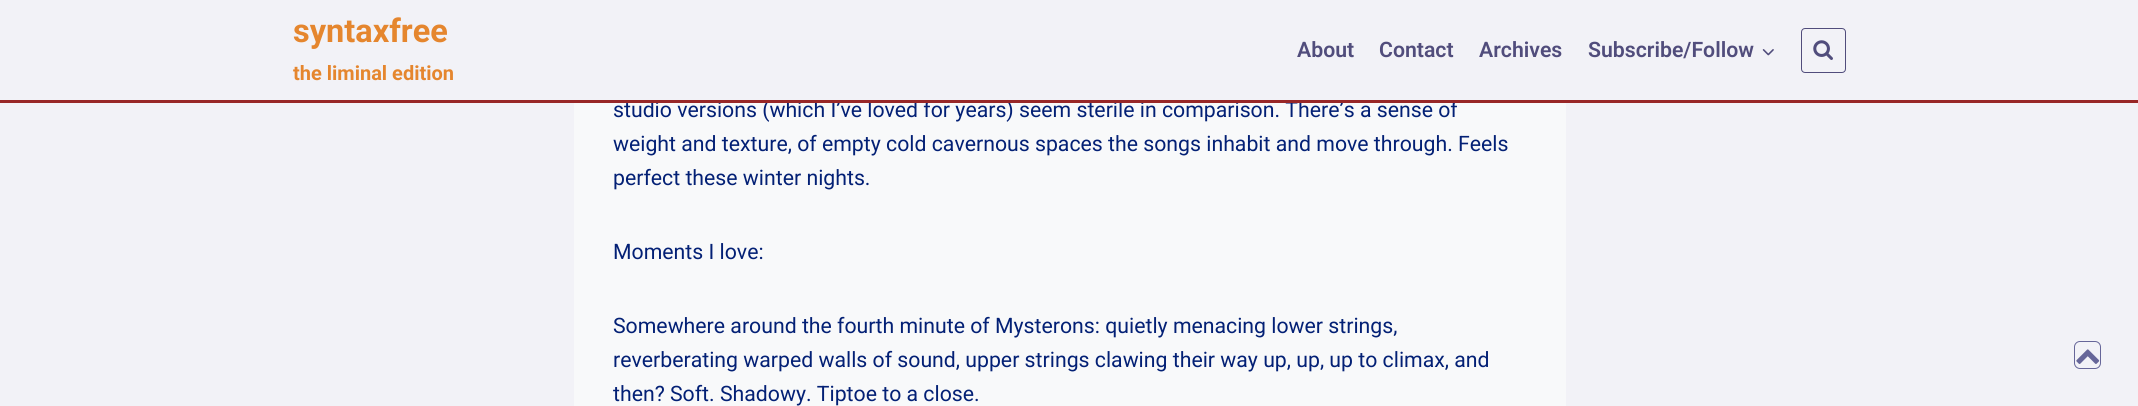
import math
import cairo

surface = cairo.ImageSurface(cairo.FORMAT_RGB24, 2138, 406)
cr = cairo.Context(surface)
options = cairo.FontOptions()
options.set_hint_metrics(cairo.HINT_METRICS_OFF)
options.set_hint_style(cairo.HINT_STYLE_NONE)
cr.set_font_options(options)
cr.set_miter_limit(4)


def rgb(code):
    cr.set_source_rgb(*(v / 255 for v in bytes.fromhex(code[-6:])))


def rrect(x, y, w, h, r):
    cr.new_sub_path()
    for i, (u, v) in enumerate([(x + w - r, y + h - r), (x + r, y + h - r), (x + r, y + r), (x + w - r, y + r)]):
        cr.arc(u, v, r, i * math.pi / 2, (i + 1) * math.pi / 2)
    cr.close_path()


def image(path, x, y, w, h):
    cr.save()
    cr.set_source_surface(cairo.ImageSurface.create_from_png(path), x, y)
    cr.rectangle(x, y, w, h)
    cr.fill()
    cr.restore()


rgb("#f2f2f7")
cr.paint()
image("img/1.png", 1762, 49, 12, 7)
rrect(1801.5, 28.5, 44, 44, 3.5)
rgb("#514d7c")
cr.set_line_width(1)
cr.stroke()
image("img/2.png", 1813, 40, 20, 20)
rgb("#f8f9fa")
cr.rectangle(574, 103, 992, 303)
cr.fill()
rrect(2074.5, 341.5, 26, 27, 5.5)
rgb("#666699")
cr.stroke()
image("img/3.png", 2076, 349, 24, 15)
cr.select_font_face("Roboto", cairo.FONT_SLANT_NORMAL, cairo.FONT_WEIGHT_BOLD)
cr.set_font_size(32.5)
rgb("#e5862e")
cr.move_to(293, 42)
cr.show_text("syntaxfree")
cr.set_font_size(20)
cr.move_to(293, 80)
cr.show_text("the liminal edition")
cr.select_font_face("Roboto SemiBold")
cr.set_font_size(21.25)
rgb("#514d7c")
for x, y, s in [
    (1297, 57, "About"),
    (1379, 57, "Contact"),
    (1479, 57, "Archives"),
    (1588, 57, "Subscribe/Follow"),
]:
    cr.move_to(x, y)
    cr.show_text(s)
cr.select_font_face("Roboto")
rgb("#032075")
cr.move_to(613, 117)
cr.show_text("studio versions (which I’ve loved for years) seem sterile in comparison. There’s a sense of")
rgb("#982727")
cr.rectangle(0, 100, 2138, 3)
cr.fill()
rgb("#032075")
for x, y, s in [
    (613, 151, "weight and texture, of empty cold cavernous spaces the songs inhabit and move through. Feels"),
    (613, 185, "perfect these winter nights."),
    (613, 259, "Moments I love:"),
    (613, 333, "Somewhere around the fourth minute of Mysterons: quietly menacing lower strings,"),
    (613, 367, "reverberating warped walls of sound, upper strings clawing their way up, up, up to climax, and"),
    (613, 401, "then? Soft. Shadowy. Tiptoe to a close."),
]:
    cr.move_to(x, y)
    cr.show_text(s)
surface.write_to_png("page.png")
